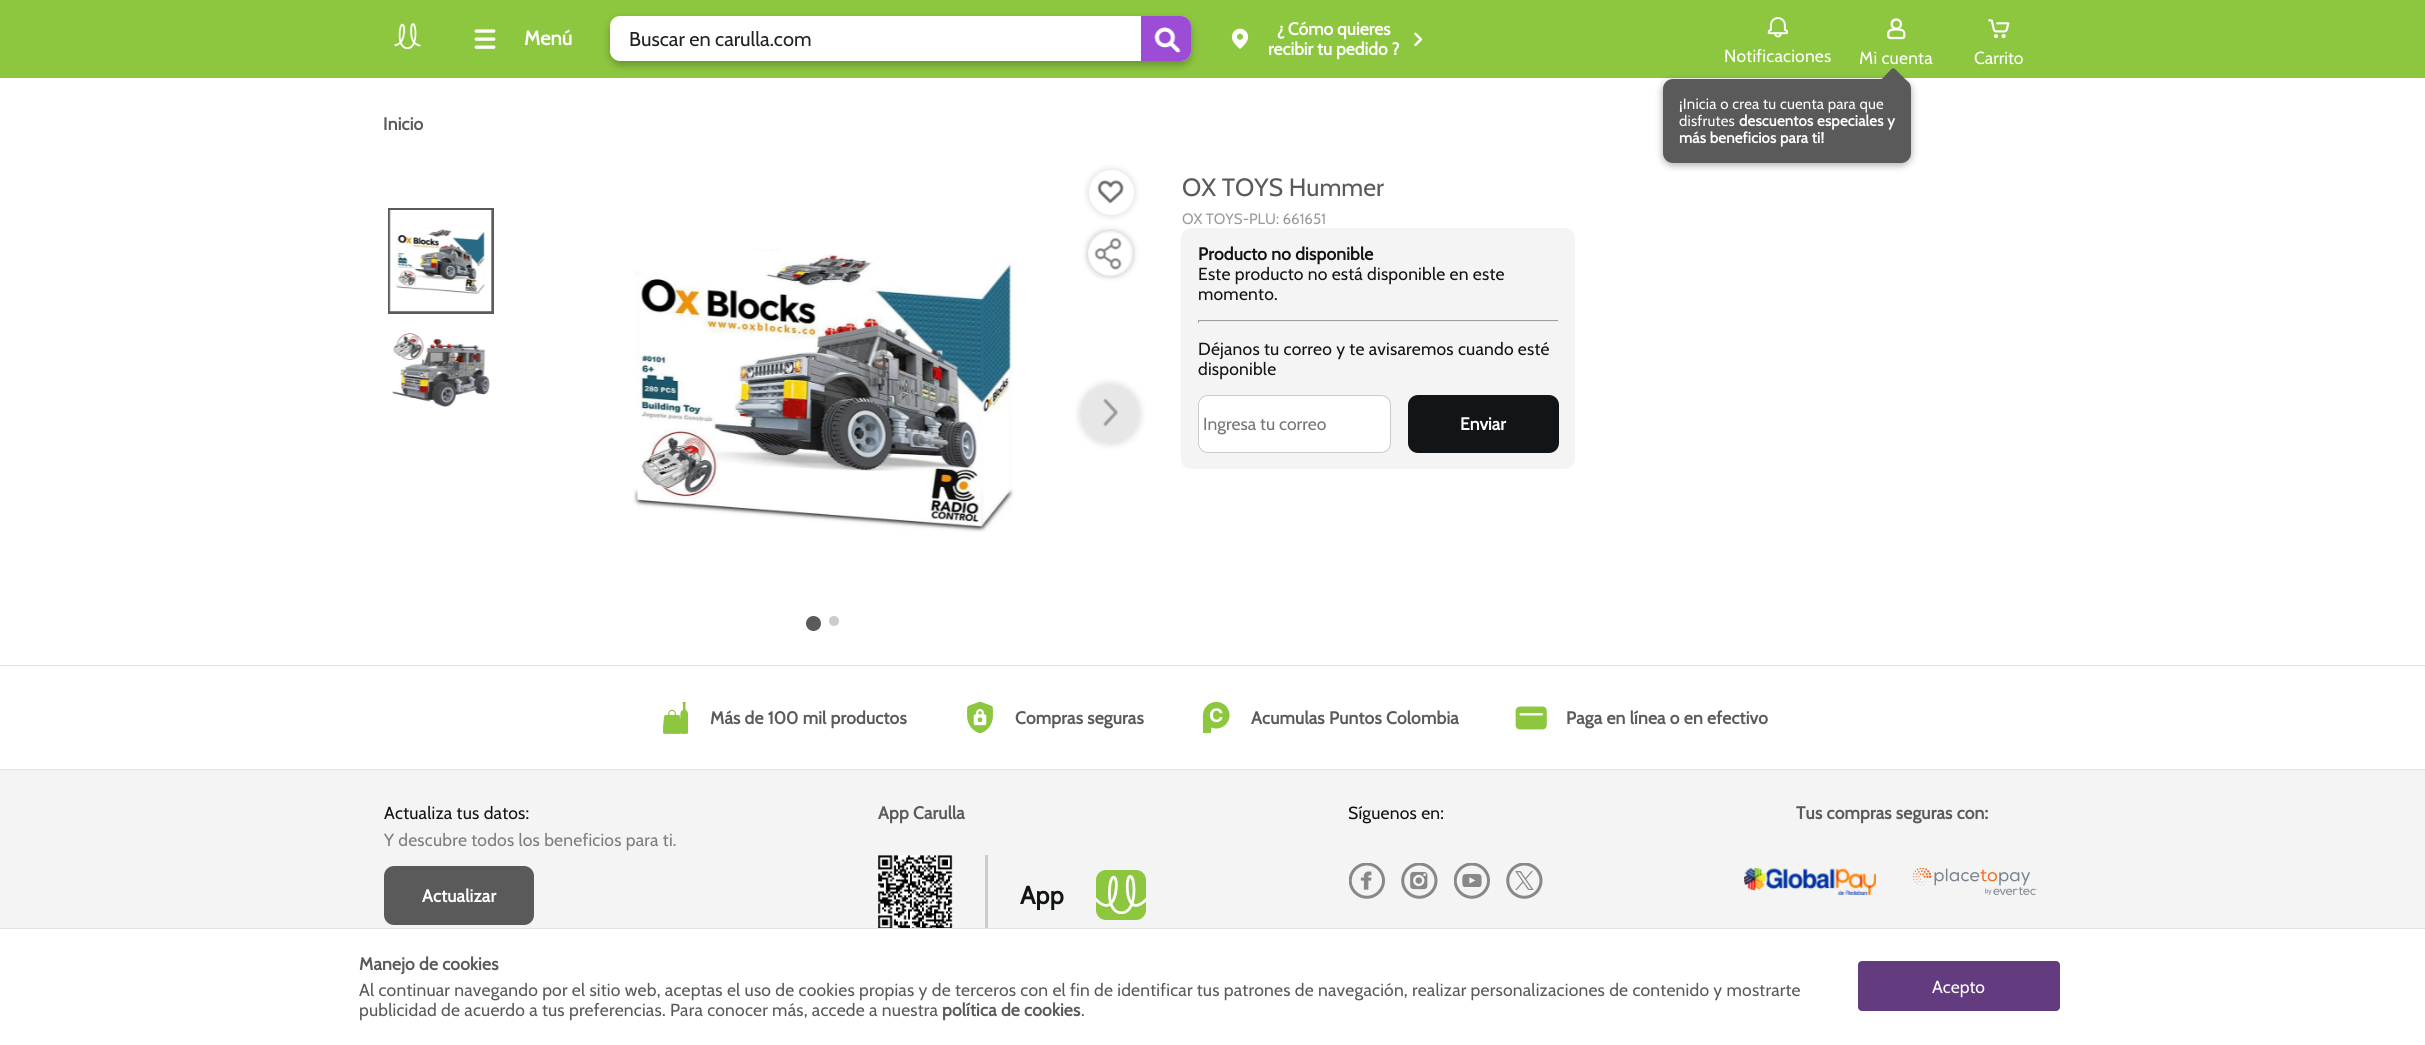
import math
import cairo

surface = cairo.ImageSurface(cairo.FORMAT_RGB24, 2425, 1045)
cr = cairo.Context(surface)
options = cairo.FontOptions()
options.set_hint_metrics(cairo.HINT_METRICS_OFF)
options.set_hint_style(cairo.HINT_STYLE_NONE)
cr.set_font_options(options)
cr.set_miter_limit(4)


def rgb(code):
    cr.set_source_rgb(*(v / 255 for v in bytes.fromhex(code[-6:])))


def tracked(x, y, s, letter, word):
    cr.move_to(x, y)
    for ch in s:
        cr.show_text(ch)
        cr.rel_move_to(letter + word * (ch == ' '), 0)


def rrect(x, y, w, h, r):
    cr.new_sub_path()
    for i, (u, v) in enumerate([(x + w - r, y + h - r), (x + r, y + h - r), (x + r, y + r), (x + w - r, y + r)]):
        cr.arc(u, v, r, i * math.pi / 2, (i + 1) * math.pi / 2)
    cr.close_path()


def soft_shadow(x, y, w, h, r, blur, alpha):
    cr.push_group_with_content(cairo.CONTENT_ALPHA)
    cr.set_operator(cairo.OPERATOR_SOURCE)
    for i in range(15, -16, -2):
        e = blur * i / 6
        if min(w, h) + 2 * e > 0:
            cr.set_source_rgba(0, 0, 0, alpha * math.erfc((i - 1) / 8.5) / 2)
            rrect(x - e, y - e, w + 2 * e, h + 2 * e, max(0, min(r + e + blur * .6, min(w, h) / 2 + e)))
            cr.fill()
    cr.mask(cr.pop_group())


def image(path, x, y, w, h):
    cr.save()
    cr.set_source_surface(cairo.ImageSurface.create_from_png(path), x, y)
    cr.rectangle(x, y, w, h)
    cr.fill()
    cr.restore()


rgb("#ffffff")
cr.paint()
rgb("#8dc63f")
cr.rectangle(0, 0, 2425, 78)
cr.fill()
image("img/1.png", 394, 23, 27, 26)
image("img/2.png", 474, 29, 22, 20)
rgb("#ffffff")
rrect(610, 16, 581, 45, 10)
cr.fill()
cr.save()
cr.set_fill_rule(cairo.FILL_RULE_EVEN_ODD)
cr.new_path()
cr.move_to(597, 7)
cr.line_to(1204, 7)
cr.line_to(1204, 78)
cr.line_to(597, 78)
cr.close_path()
cr.move_to(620, 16)
cr.line_to(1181, 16)
cr.curve_to(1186.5, 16, 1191, 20.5, 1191, 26)
cr.line_to(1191, 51)
cr.curve_to(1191, 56.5, 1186.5, 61, 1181, 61)
cr.line_to(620, 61)
cr.curve_to(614.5, 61, 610, 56.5, 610, 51)
cr.line_to(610, 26)
cr.curve_to(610, 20.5, 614.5, 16, 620, 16)
cr.close_path()
cr.clip()
rgb("#000000")
soft_shadow(610, 20, 581, 45, 10, 4, 0.26)
cr.restore()
rgb("#9c4cd5")
cr.new_path()
cr.move_to(1141, 16)
cr.line_to(1181, 16)
cr.curve_to(1186.5, 16, 1191, 20.5, 1191, 26)
cr.line_to(1191, 51)
cr.curve_to(1191, 56.5, 1186.5, 61, 1181, 61)
cr.line_to(1141, 61)
cr.close_path()
cr.fill()
image("img/3.png", 1154, 27, 27, 26)
image("img/4.png", 1231, 28, 18, 21)
image("img/5.png", 1414, 32, 9, 15)
image("img/6.png", 1767, 17, 22, 21)
image("img/7.png", 1887, 18, 19, 22)
rgb("#000000")
soft_shadow(1663, 81, 248, 84, 10, 4, 0.34)
rgb("#5a5a5a")
rrect(1663, 79, 248, 84, 10)
cr.fill()
image("img/8.png", 1988, 19, 22, 20)
rgb("#000000")
soft_shadow(1089, 170, 45, 45, 22.5, 4, 0.16)
rgb("#ffffff")
cr.arc(1111.5, 192.5, 22.5, 0, 2 * math.pi)
cr.fill()
image("img/9.png", 1097, 180, 27, 24)
cr.rectangle(389.5, 209.5, 103, 103)
rgb("#5a5a5a")
cr.set_line_width(3)
cr.stroke()
image("img/10.png", 389, 210, 103, 102)
image("img/11.png", 392, 333, 98, 74)
rgb("#000000")
soft_shadow(1088, 231, 45, 45, 22.5, 4, 0.16)
rgb("#ffffff")
cr.arc(1110.5, 253.5, 22.5, 0, 2 * math.pi)
cr.fill()
image("img/12.png", 1085, 229, 50, 50)
image("img/13.png", 633, 249, 381, 283)
cr.save()
cr.set_fill_rule(cairo.FILL_RULE_EVEN_ODD)
cr.new_path()
cr.move_to(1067, 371)
cr.line_to(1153, 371)
cr.line_to(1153, 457)
cr.line_to(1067, 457)
cr.close_path()
cr.move_to(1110, 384)
cr.curve_to(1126.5, 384, 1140, 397.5, 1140, 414)
cr.curve_to(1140, 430.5, 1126.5, 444, 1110, 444)
cr.curve_to(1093.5, 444, 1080, 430.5, 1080, 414)
cr.curve_to(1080, 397.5, 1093.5, 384, 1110, 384)
cr.close_path()
cr.clip()
rgb("#000000")
soft_shadow(1080, 384, 60, 60, 30, 4, 0.16)
cr.restore()
cr.set_source_rgba(0.89, 0.89, 0.89, 0.85)
cr.arc(1110, 414, 30, 0, 2 * math.pi)
cr.fill()
image("img/14.png", 1103, 398, 15, 29)
rgb("#5a5a5a")
cr.arc(813.5, 623.5, 7.5, 0, 2 * math.pi)
cr.fill()
rgb("#cccccc")
cr.arc(834, 621, 5, 0, 2 * math.pi)
cr.fill()
rgb("#f4f4f4")
rrect(1181, 228, 394, 241, 10)
cr.fill()
for x, y, w, h, color in [
    (1198, 320, 361, 1, "#9f9f9f"),
    (1558, 320, 1, 3, "#eeeeee"),
    (1198, 321, 361, 1, "#eeeeee"),
    (1198, 320, 1, 3, "#9f9f9f"),
]:
    rgb(color)
    cr.rectangle(x, y, w, h)
    cr.fill()
rgb("#ffffff")
rrect(1198.5, 395.5, 192, 57, 9.5)
cr.fill_preserve()
rgb("#cccccc")
cr.set_line_width(1)
cr.stroke()
rgb("#111517")
rrect(1408, 395, 151, 58, 10)
cr.fill()
rgb("#e3e3e3")
cr.rectangle(0, 665, 2425, 1)
cr.fill()
cr.rectangle(0, 769, 2425, 1)
cr.fill()
image("img/15.png", 663, 702, 25, 32)
image("img/16.png", 967, 701, 26, 33)
image("img/17.png", 1202, 701, 28, 33)
image("img/18.png", 1515, 706, 32, 24)
rgb("#f4f4f4")
cr.rectangle(0, 770, 2425, 158)
cr.fill()
rgb("#5a5a5a")
rrect(384, 866, 150, 59, 10)
cr.fill()
image("img/19.png", 878, 855, 75, 73)
rgb("#cccccc")
cr.rectangle(985, 855, 3, 81)
cr.fill()
image("img/20.png", 1096, 870, 50, 50)
image("img/21.png", 1349, 863, 36, 36)
image("img/22.png", 1401, 863, 37, 36)
image("img/23.png", 1454, 863, 36, 36)
image("img/24.png", 1506, 863, 37, 36)
image("img/25.png", 1744, 868, 132, 27)
image("img/26.png", 1912, 868, 126, 27)
rgb("#ffffff")
cr.rectangle(985, 929, 3, 7)
cr.fill()
rgb("#e3e3e3")
cr.rectangle(0, 928, 2425, 1)
cr.fill()
rgb("#633b7f")
rrect(1858, 961, 202, 50, 4)
cr.fill()
cr.select_font_face("Cabin", cairo.FONT_SLANT_NORMAL, cairo.FONT_WEIGHT_BOLD)
cr.set_font_size(20)
rgb("#ffffff")
cr.move_to(524, 45)
cr.show_text("Menú")
cr.select_font_face("Cabin")
rgb("#222222")
cr.move_to(629, 46)
cr.show_text("Buscar en carulla.com")
cr.select_font_face("Cabin", cairo.FONT_SLANT_NORMAL, cairo.FONT_WEIGHT_BOLD)
cr.set_font_size(17.5)
rgb("#ffffff")
cr.move_to(1277, 35)
cr.show_text("¿ Cómo quieres")
cr.move_to(1268, 55)
cr.show_text("recibir tu pedido ?")
cr.select_font_face("Cabin")
tracked(1724, 62, "Notificaciones", 0.2, 0)
tracked(1859, 64, "Mi cuenta", 0.2, 0)
cr.set_font_size(15)
tracked(1679, 109, "¡Inicia o crea tu cuenta para que", 0.2, 0)
rgb("#5a5a5a")
cr.new_path()
cr.move_to(1895, 69)
cr.line_to(1909.5, 83.5)
cr.curve_to(1910.5, 84.5, 1910.5, 86, 1909.5, 87)
cr.line_to(1895, 101)
cr.curve_to(1894, 102, 1892.5, 102, 1891.5, 101)
cr.line_to(1877.5, 87)
cr.curve_to(1876.5, 86, 1876.5, 84.5, 1877.5, 83.5)
cr.line_to(1891.5, 69)
cr.curve_to(1892.5, 68, 1894, 68, 1895, 69)
cr.close_path()
cr.fill()
rgb("#ffffff")
tracked(1679, 126, "disfrutes", 0.2, 0)
cr.select_font_face("Cabin", cairo.FONT_SLANT_NORMAL, cairo.FONT_WEIGHT_BOLD)
tracked(1739, 126, "descuentos especiales y", 0.2, 0)
tracked(1679, 143, "más beneficios para ti!", 0.2, 0)
cr.select_font_face("Cabin")
cr.set_font_size(17.5)
cr.move_to(1974, 64)
cr.show_text("Carrito")
cr.select_font_face("Cabin", cairo.FONT_SLANT_NORMAL, cairo.FONT_WEIGHT_BOLD)
rgb("#5a5a5a")
tracked(383, 130, "Inicio", 0.2, 0)
cr.select_font_face("Cabin")
cr.set_font_size(25)
cr.move_to(1182, 196)
cr.show_text("OX TOYS Hummer")
cr.set_font_size(15)
rgb("#9a9a9a")
cr.move_to(1182, 224)
cr.show_text("OX TOYS-PLU: 661651")
cr.select_font_face("Cabin", cairo.FONT_SLANT_NORMAL, cairo.FONT_WEIGHT_BOLD)
cr.set_font_size(17.5)
rgb("#111517")
tracked(1198, 260, "Producto no disponible", 0.2, 0)
cr.select_font_face("Cabin")
for x, y, s in [
    (1198, 280, "Este producto no está disponible en este"),
    (1198, 300, "momento."),
    (1198, 355, "Déjanos tu correo y te avisaremos cuando esté"),
    (1198, 375, "disponible"),
]:
    tracked(x, y, s, 0.2, 0)
rgb("#757575")
cr.move_to(1203, 430)
cr.show_text("Ingresa tu correo")
cr.select_font_face("Cabin", cairo.FONT_SLANT_NORMAL, cairo.FONT_WEIGHT_BOLD)
rgb("#ffffff")
cr.move_to(1460, 430)
cr.show_text("Enviar")
rgb("#5a5a5a")
for x, y, s in [
    (710, 724, "Más de 100 mil productos"),
    (1015, 724, "Compras seguras"),
    (1251, 724, "Acumulas Puntos Colombia"),
    (1566, 724, "Paga en línea o en efectivo"),
]:
    tracked(x, y, s, 0.2, 0)
cr.select_font_face("Cabin")
rgb("#111517")
tracked(384, 819, "Actualiza tus datos:", 0.2, 0)
rgb("#7d7d7d")
tracked(384, 846, "Y descubre todos los beneficios para ti.", 0.2, 0)
cr.select_font_face("Cabin", cairo.FONT_SLANT_NORMAL, cairo.FONT_WEIGHT_BOLD)
rgb("#ffffff")
tracked(422, 902, "Actualizar", 0.2, 0)
rgb("#5a5a5a")
tracked(878, 819, "App Carulla", 0.2, 0)
cr.set_font_size(25)
rgb("#111517")
tracked(1020, 904, "App", 0.2, 0)
cr.select_font_face("Cabin")
cr.set_font_size(17.5)
tracked(1348, 819, "Síguenos en:", 0.2, 0)
cr.select_font_face("Cabin", cairo.FONT_SLANT_NORMAL, cairo.FONT_WEIGHT_BOLD)
rgb("#5a5a5a")
tracked(1796, 819, "Tus compras seguras con:", 0.2, 0)
tracked(359, 970, "Manejo de cookies", 0.2, 0)
cr.select_font_face("Cabin")
tracked(359, 996, "Al continuar navegando por el sitio web, aceptas el uso de cookies propias y de terceros con el fin de identificar tus patrones de navegación, realizar personalizaciones de contenido y mostrarte", 0.2, 0)
tracked(359, 1016, "publicidad de acuerdo a tus preferencias. Para conocer más, accede a nuestra", 0.2, 0)
cr.select_font_face("Cabin", cairo.FONT_SLANT_NORMAL, cairo.FONT_WEIGHT_BOLD)
tracked(942, 1016, "política de cookies", 0.2, 0)
cr.select_font_face("Cabin")
tracked(1081, 1016, ".", 0.2, 0)
rgb("#ffffff")
cr.move_to(1932, 993)
cr.show_text("Acepto")
surface.write_to_png("page.png")
